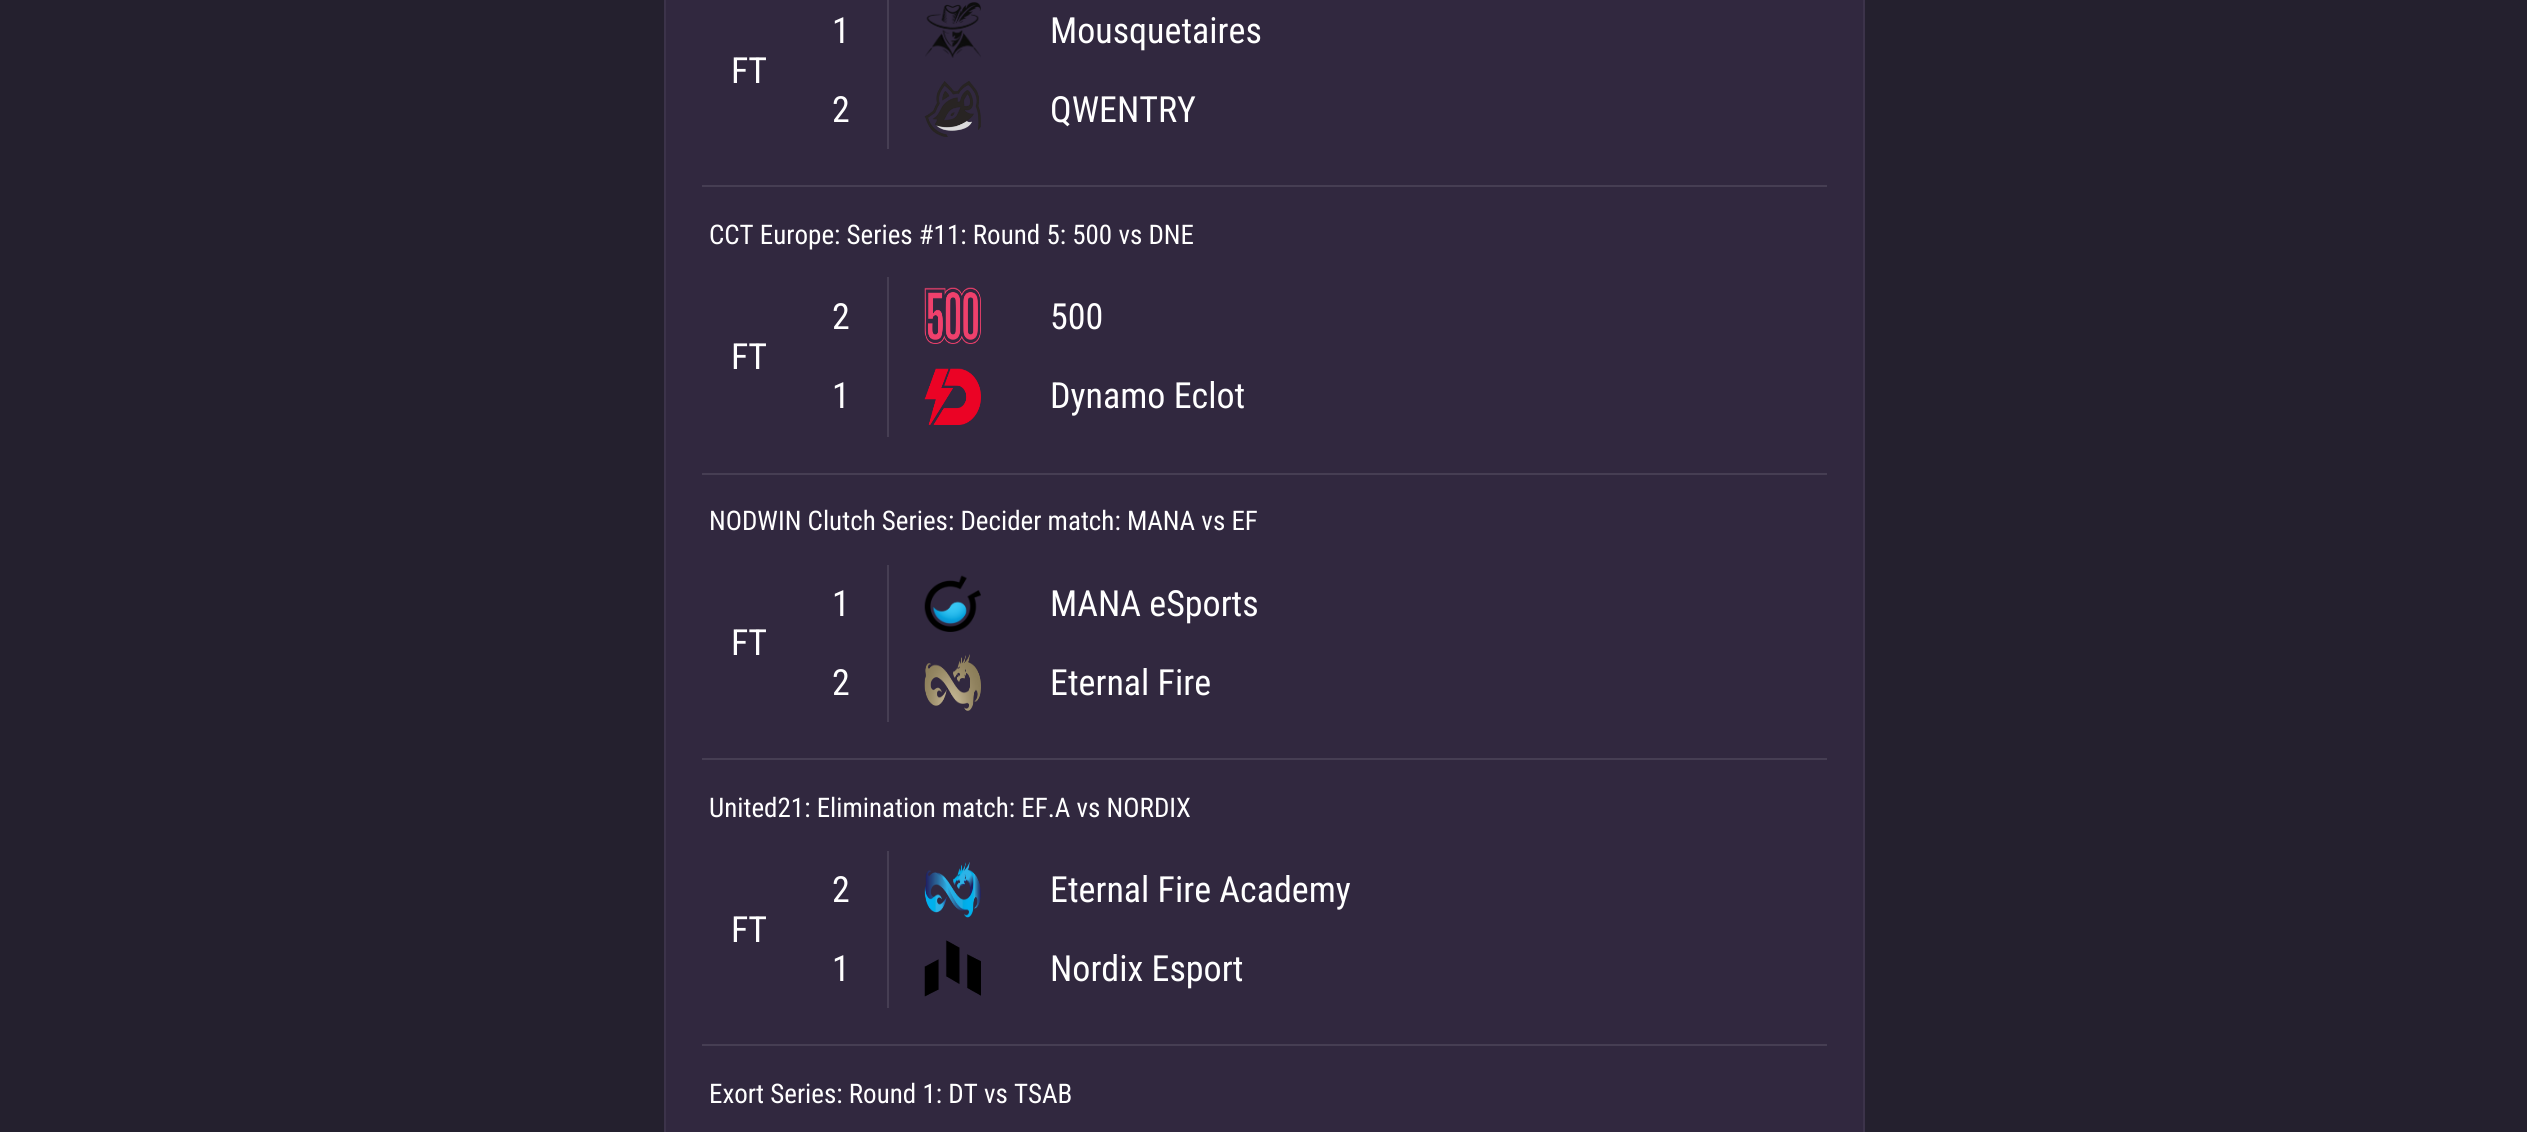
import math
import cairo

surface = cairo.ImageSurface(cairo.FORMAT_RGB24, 2527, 1132)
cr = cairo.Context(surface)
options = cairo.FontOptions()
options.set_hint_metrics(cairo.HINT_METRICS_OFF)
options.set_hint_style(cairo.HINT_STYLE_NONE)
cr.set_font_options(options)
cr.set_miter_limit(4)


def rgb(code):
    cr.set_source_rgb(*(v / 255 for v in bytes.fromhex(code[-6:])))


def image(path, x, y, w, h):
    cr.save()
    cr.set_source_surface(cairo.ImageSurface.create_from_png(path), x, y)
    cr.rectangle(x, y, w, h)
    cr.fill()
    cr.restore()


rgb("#24202e")
cr.paint()
rgb("#31283f")
cr.rectangle(665, -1, 1199, 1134)
cr.fill_preserve()
rgb("#3c334a")
cr.stroke()
rgb("#463e53")
cr.rectangle(887, 0, 2, 149)
cr.fill()
image("img/1.png", 925, 2, 56, 56)
image("img/2.png", 924, 81, 57, 56)
cr.rectangle(702, 185, 1125, 2)
cr.fill()
cr.rectangle(887, 277, 2, 160)
cr.fill()
image("img/3.png", 924, 287, 57, 57)
image("img/4.png", 924, 368, 57, 57)
cr.rectangle(702, 473, 1125, 2)
cr.fill()
cr.rectangle(887, 565, 2, 157)
cr.fill()
image("img/5.png", 924, 575, 57, 57)
image("img/6.png", 924, 654, 57, 57)
cr.rectangle(702, 758, 1125, 2)
cr.fill()
cr.rectangle(887, 851, 2, 157)
cr.fill()
image("img/7.png", 924, 862, 57, 56)
image("img/8.png", 924, 940, 57, 57)
cr.rectangle(702, 1044, 1125, 2)
cr.fill()
cr.select_font_face("Roboto Condensed")
cr.set_font_size(36)
rgb("#ffffff")
for x, y, s in [
    (731, 83, "FT"),
    (832, 43, "1"),
    (832, 122, "2"),
    (1050, 43, "Mousquetaires"),
    (1050, 122, "QWENTRY"),
]:
    cr.move_to(x, y)
    cr.show_text(s)
cr.set_font_size(27)
cr.move_to(709, 244)
cr.show_text("CCT Europe: Series #11: Round 5: 500 vs DNE")
cr.set_font_size(36)
for x, y, s in [
    (731, 369, "FT"),
    (832, 329, "2"),
    (832, 408, "1"),
    (1050, 329, "500"),
    (1050, 408, "Dynamo Eclot"),
]:
    cr.move_to(x, y)
    cr.show_text(s)
cr.set_font_size(27)
cr.move_to(709, 530)
cr.show_text("NODWIN Clutch Series: Decider match: MANA vs EF")
cr.set_font_size(36)
for x, y, s in [
    (731, 655, "FT"),
    (832, 616, "1"),
    (832, 695, "2"),
    (1050, 616, "MANA eSports"),
    (1050, 695, "Eternal Fire"),
]:
    cr.move_to(x, y)
    cr.show_text(s)
cr.set_font_size(27)
cr.move_to(709, 817)
cr.show_text("United21: Elimination match: EF.A vs NORDIX")
cr.set_font_size(36)
for x, y, s in [
    (731, 942, "FT"),
    (832, 902, "2"),
    (832, 981, "1"),
    (1050, 902, "Eternal Fire Academy"),
    (1050, 981, "Nordix Esport"),
]:
    cr.move_to(x, y)
    cr.show_text(s)
cr.set_font_size(27)
cr.move_to(709, 1103)
cr.show_text("Exort Series: Round 1: DT vs TSAB")
surface.write_to_png("page.png")
